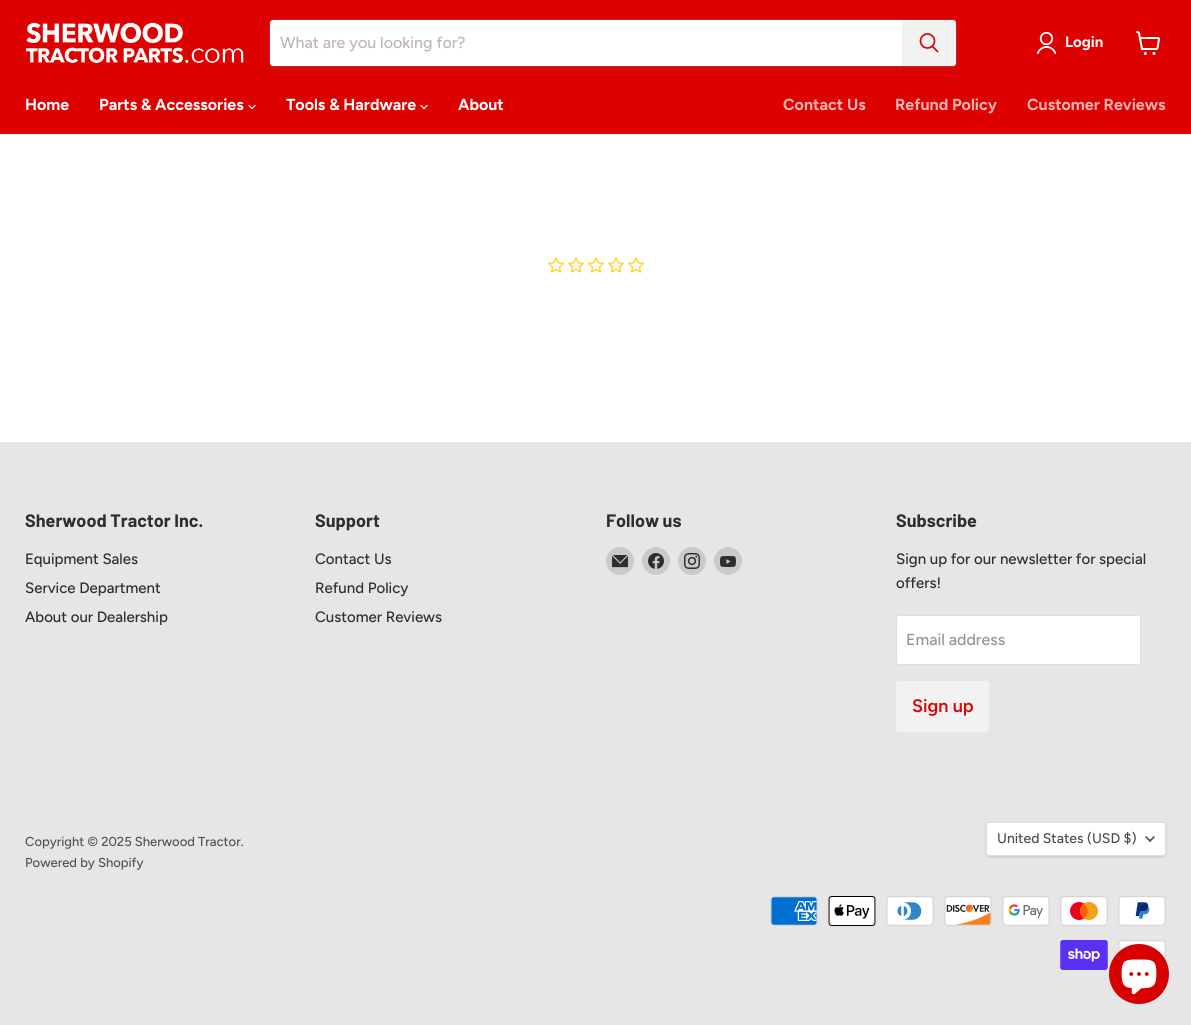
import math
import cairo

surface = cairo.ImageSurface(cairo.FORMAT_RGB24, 1191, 1025)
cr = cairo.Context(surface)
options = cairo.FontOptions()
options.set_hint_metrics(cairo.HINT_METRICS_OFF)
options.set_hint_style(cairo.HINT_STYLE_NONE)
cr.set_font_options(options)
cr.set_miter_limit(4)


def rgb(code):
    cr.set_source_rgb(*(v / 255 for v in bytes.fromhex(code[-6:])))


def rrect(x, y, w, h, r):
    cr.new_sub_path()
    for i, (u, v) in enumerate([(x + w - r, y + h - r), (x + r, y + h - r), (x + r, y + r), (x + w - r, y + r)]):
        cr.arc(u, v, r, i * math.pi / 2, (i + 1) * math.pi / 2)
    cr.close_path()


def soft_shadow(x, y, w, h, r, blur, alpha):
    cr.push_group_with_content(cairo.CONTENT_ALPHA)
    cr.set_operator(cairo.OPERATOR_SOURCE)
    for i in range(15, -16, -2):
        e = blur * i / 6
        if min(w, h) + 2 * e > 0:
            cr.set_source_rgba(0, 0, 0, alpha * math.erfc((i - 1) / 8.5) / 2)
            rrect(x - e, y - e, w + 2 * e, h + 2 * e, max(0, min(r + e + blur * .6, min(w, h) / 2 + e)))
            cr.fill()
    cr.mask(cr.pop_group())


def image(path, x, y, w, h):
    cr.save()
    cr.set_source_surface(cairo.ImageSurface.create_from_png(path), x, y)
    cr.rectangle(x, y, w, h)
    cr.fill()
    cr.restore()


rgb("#ffffff")
cr.paint()
rgb("#de0101")
cr.rectangle(0, 0, 1191, 134)
cr.fill()
image("img/1.png", 25, 22, 219, 41)
rgb("#808080")
soft_shadow(269, 21, 688, 48, 4, 1.5, 0.11)
rrect(269.5, 19.5, 687, 47, 3.5)
cr.set_source_rgba(0.502, 0.502, 0.502, 0.2)
cr.set_line_width(1)
cr.stroke()
rgb("#ffffff")
cr.new_path()
cr.move_to(273, 20)
cr.line_to(902, 20)
cr.line_to(902, 66)
cr.line_to(273, 66)
cr.curve_to(271.5, 66, 270, 64.5, 270, 63)
cr.line_to(270, 23)
cr.curve_to(270, 21.5, 271.5, 20, 273, 20)
cr.close_path()
cr.fill()
rgb("#f2f2f2")
cr.new_path()
cr.move_to(902.5, 20.5)
cr.line_to(953, 20.5)
cr.curve_to(954.5, 20.5, 955.5, 21.5, 955.5, 23)
cr.line_to(955.5, 63)
cr.curve_to(955.5, 64.5, 954.5, 65.5, 953, 65.5)
cr.line_to(902.5, 65.5)
cr.close_path()
cr.fill_preserve()
cr.stroke()
cr.new_path()
cr.move_to(937.5, 51.5)
cr.line_to(932.5, 46.5)
rgb("#de0101")
cr.set_line_width(1.7)
cr.set_line_cap(cairo.LINE_CAP_ROUND)
cr.stroke()
cr.arc(927.5, 41, 7, 0, 2 * math.pi)
cr.set_line_cap(cairo.LINE_CAP_BUTT)
cr.stroke()
image("img/2.png", 1036, 31, 21, 24)
image("img/3.png", 1136, 31, 24, 24)
image("img/4.png", 248, 104, 8, 6)
image("img/4.png", 420, 104, 8, 6)
image("img/5.png", 548, 257, 16, 16)
image("img/5.png", 568, 257, 16, 16)
image("img/5.png", 588, 257, 16, 16)
image("img/5.png", 608, 257, 16, 16)
image("img/5.png", 628, 257, 16, 16)
rgb("#e6e6e6")
cr.rectangle(0, 442, 1191, 583)
cr.fill()
rgb("#cacaca")
cr.arc(620, 561, 14, 0, 2 * math.pi)
cr.fill()
image("img/6.png", 612, 555, 16, 13)
cr.arc(656, 561, 14, 0, 2 * math.pi)
cr.fill()
image("img/7.png", 648, 553, 16, 16)
cr.arc(692, 561, 14, 0, 2 * math.pi)
cr.fill()
image("img/8.png", 684, 553, 16, 16)
cr.arc(728, 561, 14, 0, 2 * math.pi)
cr.fill()
image("img/9.png", 720, 556, 16, 11)
rgb("#ffffff")
rrect(896.5, 615.5, 244, 49, 2.5)
cr.fill_preserve()
rgb("#dddddd")
cr.set_line_width(1)
cr.stroke()
rgb("#f2f2f2")
rrect(896.5, 681.5, 92, 50, 2.5)
cr.fill_preserve()
cr.stroke()
rgb("#000000")
soft_shadow(986, 823, 180, 34, 3, 1, 0.15)
rgb("#ffffff")
rrect(986.5, 822.5, 179, 33, 2.5)
cr.fill_preserve()
rgb("#dddddd")
cr.stroke()
image("img/10.png", 1145, 836, 10, 6)
image("img/11.png", 770, 896, 48, 30)
image("img/12.png", 828, 896, 48, 30)
image("img/13.png", 886, 896, 48, 30)
image("img/14.png", 944, 896, 48, 30)
image("img/15.png", 1002, 896, 48, 30)
image("img/16.png", 1060, 896, 48, 30)
image("img/17.png", 1118, 896, 48, 30)
image("img/18.png", 1060, 940, 48, 30)
image("img/19.png", 1118, 940, 48, 21)
rgb("#d60000")
cr.arc(1139, 974, 30, 0, 2 * math.pi)
cr.fill()
image("img/20.png", 1121, 959, 36, 36)
cr.select_font_face("Figtree Medium")
cr.set_font_size(16)
rgb("#b8b8b8")
cr.move_to(280, 48)
cr.show_text("What are you looking for?")
cr.select_font_face("Figtree", cairo.FONT_SLANT_NORMAL, cairo.FONT_WEIGHT_BOLD)
cr.set_font_size(15)
rgb("#ffffff")
cr.move_to(1065, 47)
cr.show_text("Login")
cr.set_font_size(16)
for x, y, s in [
    (25, 110, "Home"),
    (99, 110, "Parts & Accessories"),
    (286, 110, "Tools & Hardware"),
    (458, 110, "About"),
]:
    cr.move_to(x, y)
    cr.show_text(s)
rgb("#f5b3b3")
for x, y, s in [
    (783, 110, "Contact Us"),
    (895, 110, "Refund Policy"),
    (1027, 110, "Customer Reviews"),
]:
    cr.move_to(x, y)
    cr.show_text(s)
cr.select_font_face("Barlow", cairo.FONT_SLANT_NORMAL, cairo.FONT_WEIGHT_BOLD)
cr.set_font_size(18)
rgb("#2e2e2e")
cr.move_to(25, 527)
cr.show_text("Sherwood Tractor Inc.")
cr.select_font_face("Figtree Medium")
cr.set_font_size(15)
for x, y, s in [
    (25, 564, "Equipment Sales"),
    (25, 593, "Service Department"),
    (25, 622, "About our Dealership"),
]:
    cr.move_to(x, y)
    cr.show_text(s)
cr.select_font_face("Barlow", cairo.FONT_SLANT_NORMAL, cairo.FONT_WEIGHT_BOLD)
cr.set_font_size(18)
cr.move_to(315, 527)
cr.show_text("Support")
cr.select_font_face("Figtree Medium")
cr.set_font_size(15)
for x, y, s in [
    (315, 564, "Contact Us"),
    (315, 593, "Refund Policy"),
    (315, 622, "Customer Reviews"),
]:
    cr.move_to(x, y)
    cr.show_text(s)
cr.select_font_face("Barlow", cairo.FONT_SLANT_NORMAL, cairo.FONT_WEIGHT_BOLD)
cr.set_font_size(18)
cr.move_to(606, 527)
cr.show_text("Follow us")
cr.move_to(896, 527)
cr.show_text("Subscribe")
cr.select_font_face("Figtree Medium")
cr.set_font_size(15)
cr.move_to(896, 564)
cr.show_text("Sign up for our newsletter for special")
cr.move_to(896, 588)
cr.show_text("offers!")
cr.set_font_size(16)
rgb("#949494")
cr.move_to(906, 645)
cr.show_text("Email address")
cr.select_font_face("Figtree SemiBold")
cr.set_font_size(18)
rgb("#de0101")
cr.move_to(912, 712)
cr.show_text("Sign up")
cr.select_font_face("Figtree Medium")
cr.set_font_size(13)
rgb("#535353")
cr.move_to(25, 846)
cr.show_text("Copyright © 2025 Sherwood Tractor.")
cr.move_to(25, 867)
cr.show_text("Powered by Shopify")
cr.set_font_size(14)
rgb("#4d4d4d")
cr.move_to(997, 843)
cr.show_text("United States (USD $)")
surface.write_to_png("page.png")
